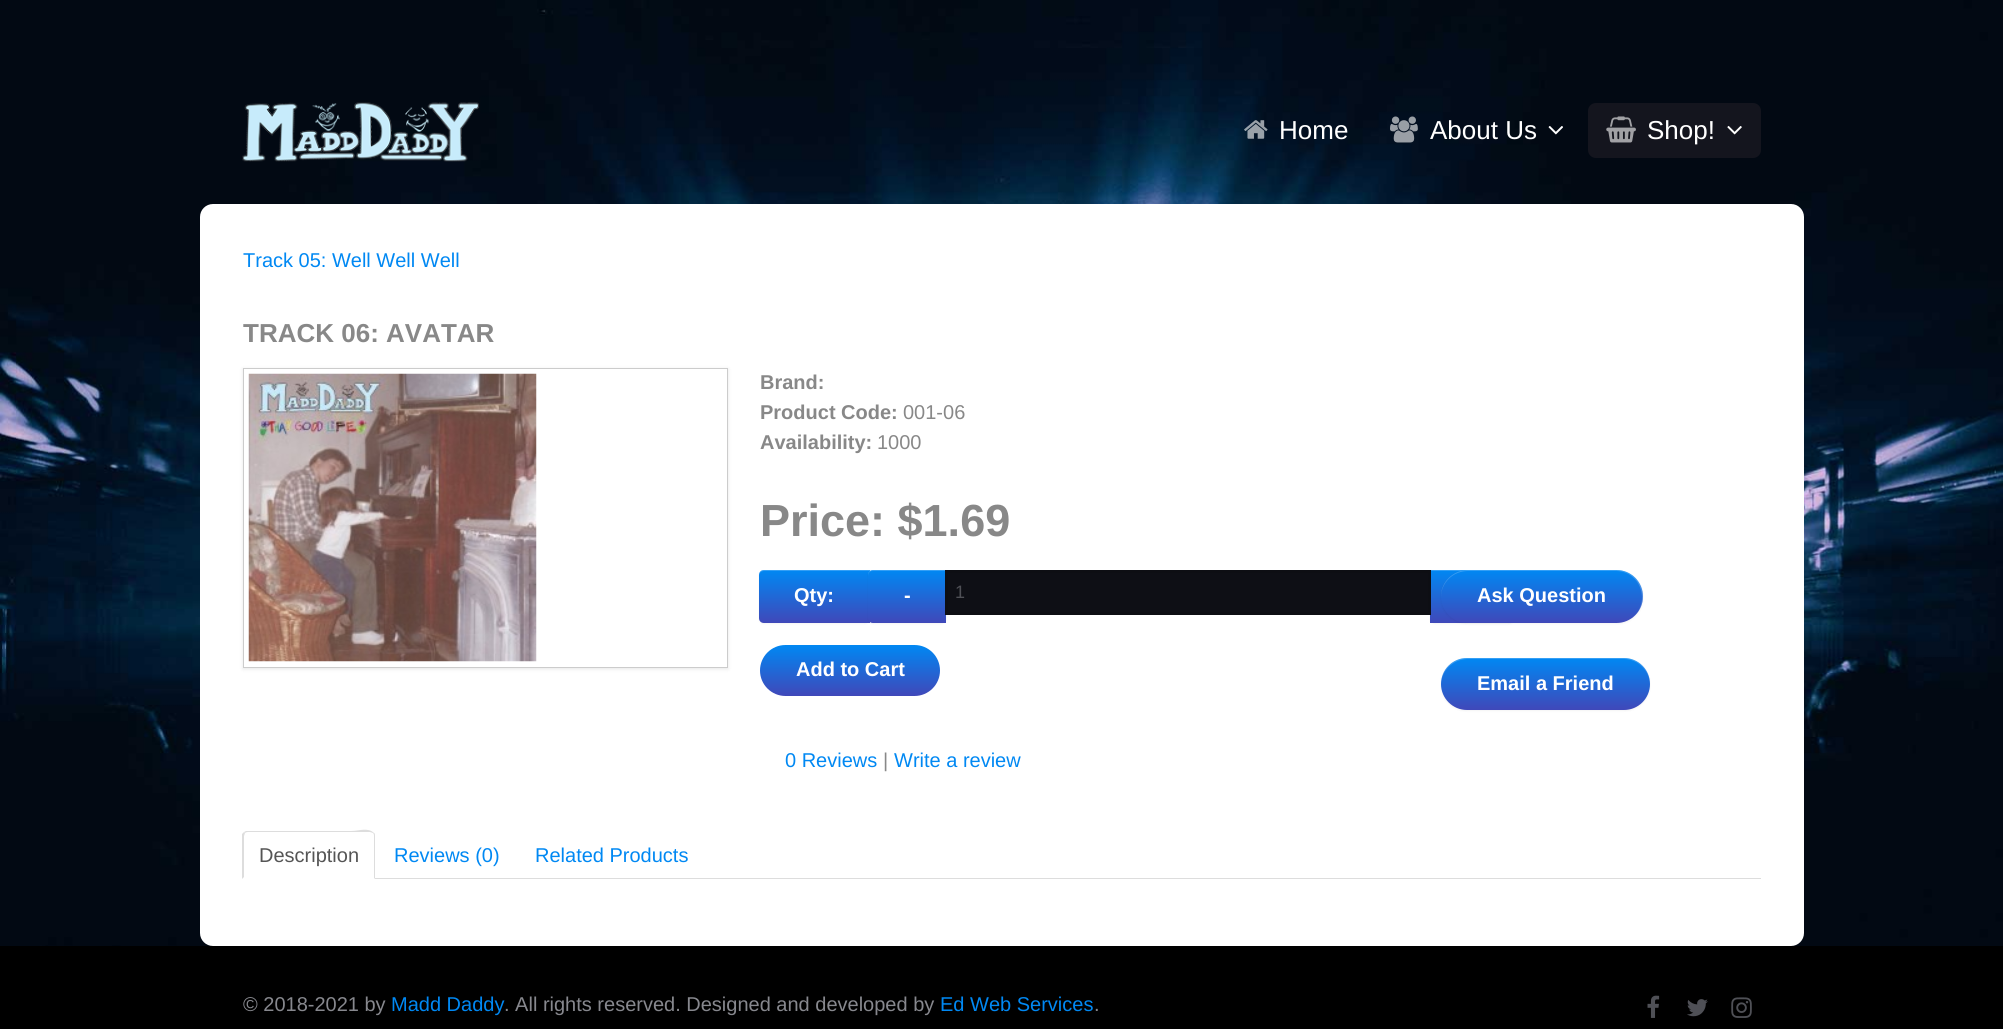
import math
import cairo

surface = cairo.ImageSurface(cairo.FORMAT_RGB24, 2003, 1029)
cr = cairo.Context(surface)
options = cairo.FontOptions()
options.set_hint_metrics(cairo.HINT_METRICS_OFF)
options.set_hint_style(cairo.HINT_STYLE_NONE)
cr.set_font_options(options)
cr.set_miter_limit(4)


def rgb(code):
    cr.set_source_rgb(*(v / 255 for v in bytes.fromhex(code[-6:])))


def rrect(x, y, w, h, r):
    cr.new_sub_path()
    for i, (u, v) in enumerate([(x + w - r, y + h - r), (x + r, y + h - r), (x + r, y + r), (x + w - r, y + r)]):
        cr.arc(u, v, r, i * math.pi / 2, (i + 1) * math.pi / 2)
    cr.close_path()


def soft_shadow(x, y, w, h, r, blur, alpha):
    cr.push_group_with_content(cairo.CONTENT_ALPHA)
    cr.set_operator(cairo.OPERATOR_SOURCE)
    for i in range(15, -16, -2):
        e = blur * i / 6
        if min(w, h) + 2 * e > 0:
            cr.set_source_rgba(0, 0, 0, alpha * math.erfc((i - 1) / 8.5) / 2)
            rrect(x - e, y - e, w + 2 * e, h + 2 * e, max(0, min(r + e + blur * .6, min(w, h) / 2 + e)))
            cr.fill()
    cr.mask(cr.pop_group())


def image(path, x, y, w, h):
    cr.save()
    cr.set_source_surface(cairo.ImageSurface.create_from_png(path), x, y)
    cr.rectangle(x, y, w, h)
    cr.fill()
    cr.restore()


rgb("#ffffff")
cr.paint()
image("img/1.png", 0, 0, 2003, 946)
image("img/2.png", 242, 102, 237, 60)
image("img/3.png", 1244, 120, 24, 19)
image("img/4.png", 1390, 116, 28, 27)
image("img/5.png", 1548, 126, 15, 9)
rgb("#14151e")
rrect(1588, 103, 173, 55, 8)
cr.fill()
image("img/6.png", 1606, 116, 30, 27)
image("img/7.png", 1727, 126, 15, 9)
rgb("#ffffff")
rrect(200, 204, 1604, 742, 13)
cr.fill()
rgb("#000000")
soft_shadow(243, 369, 485, 300, 0, 2, 0.1)
rgb("#ffffff")
cr.rectangle(243.5, 368.5, 484, 299)
cr.fill_preserve()
rgb("#cccccc")
cr.set_line_width(1)
cr.stroke()
image("img/8.png", 248, 373, 289, 289)
rgb("#000000")
soft_shadow(759, 571, 111, 53, 5, 1, 0.05)
gradient = cairo.LinearGradient(814, 570, 814, 623)
gradient.add_color_stop_rgba(0, 0, 0.533, 0.953, 1)
gradient.add_color_stop_rgba(1, 0.251, 0.282, 0.725, 1)
cr.set_source(gradient)
cr.new_path()
cr.move_to(764, 570)
cr.line_to(870, 570)
cr.line_to(870, 623)
cr.line_to(764, 623)
cr.curve_to(761, 623, 759, 621, 759, 618)
cr.line_to(759, 575)
cr.curve_to(759, 572, 761, 570, 764, 570)
cr.close_path()
cr.fill()
cr.set_source_rgba(1, 1, 1, 0.2)
cr.new_path()
cr.move_to(764, 571)
cr.line_to(870, 571)
cr.line_to(870, 570)
cr.line_to(764, 570)
cr.curve_to(761, 570, 759, 572, 759, 575)
cr.line_to(759, 576)
cr.curve_to(759, 573, 761, 571, 764, 571)
cr.close_path()
cr.fill()
rgb("#000000")
soft_shadow(868, 571, 78, 53, 5, 1, 0.05)
gradient = cairo.LinearGradient(907, 570, 907, 623)
gradient.add_color_stop_rgba(0, 0, 0.533, 0.953, 1)
gradient.add_color_stop_rgba(1, 0.251, 0.282, 0.725, 1)
cr.set_source(gradient)
cr.new_path()
cr.move_to(873, 570)
cr.line_to(946, 570)
cr.line_to(946, 623)
cr.line_to(873, 623)
cr.curve_to(870, 623, 868, 621, 868, 618)
cr.line_to(868, 575)
cr.curve_to(868, 572, 870, 570, 873, 570)
cr.close_path()
cr.fill()
cr.set_source_rgba(1, 1, 1, 0.2)
cr.new_path()
cr.move_to(872, 571)
cr.line_to(946, 571)
cr.line_to(946, 570)
cr.line_to(873, 570)
cr.curve_to(870, 570, 868, 572, 868, 575)
cr.line_to(868, 576)
cr.curve_to(868, 573, 870, 571, 872, 571)
cr.close_path()
cr.fill()
rgb("#000000")
soft_shadow(1430, 571, 84, 53, 5, 1, 0.05)
gradient = cairo.LinearGradient(1472, 570, 1472, 623)
gradient.add_color_stop_rgba(0, 0, 0.533, 0.953, 1)
gradient.add_color_stop_rgba(1, 0.251, 0.282, 0.725, 1)
cr.set_source(gradient)
cr.rectangle(1430, 570, 37, 53)
cr.fill()
cr.set_source_rgba(1, 1, 1, 0.2)
cr.new_path()
cr.move_to(1430, 571)
cr.line_to(1509, 571)
cr.curve_to(1512, 571, 1514, 573, 1514, 576)
cr.line_to(1514, 575)
cr.curve_to(1514, 572, 1512, 570, 1509, 570)
cr.line_to(1430, 570)
cr.close_path()
cr.fill()
rgb("#0e0f15")
cr.rectangle(946.5, 571.5, 483, 42)
cr.fill_preserve()
rgb("#0d0e13")
cr.set_line_width(3)
cr.stroke()
gradient = cairo.LinearGradient(850, 645, 850, 696)
gradient.add_color_stop_rgba(0, 0, 0.533, 0.953, 1)
gradient.add_color_stop_rgba(1, 0.251, 0.282, 0.725, 1)
cr.set_source(gradient)
rrect(760, 645, 180, 51, 25.5)
cr.fill()
rgb("#000000")
soft_shadow(1441, 571, 202, 53, 26.5, 1, 0.05)
gradient = cairo.LinearGradient(1542, 570, 1542, 623)
gradient.add_color_stop_rgba(0, 0, 0.533, 0.953, 1)
gradient.add_color_stop_rgba(1, 0.251, 0.282, 0.725, 1)
cr.set_source(gradient)
rrect(1441, 570, 202, 53, 26.5)
cr.fill()
cr.set_source_rgba(1, 1, 1, 0.2)
cr.new_path()
cr.move_to(1468, 571)
cr.line_to(1616, 571)
cr.curve_to(1631, 571, 1642, 583, 1642, 598)
cr.curve_to(1642, 603, 1640, 608, 1638, 612)
cr.curve_to(1641, 608, 1643, 602, 1643, 596)
cr.curve_to(1643, 582, 1631, 570, 1616, 570)
cr.line_to(1468, 570)
cr.curve_to(1453, 570, 1441, 582, 1441, 596)
cr.line_to(1441, 597)
cr.curve_to(1441, 583, 1453, 571, 1468, 571)
cr.close_path()
cr.fill()
rgb("#000000")
soft_shadow(1441, 659, 209, 52, 26, 1, 0.05)
gradient = cairo.LinearGradient(1546, 658, 1546, 710)
gradient.add_color_stop_rgba(0, 0, 0.533, 0.953, 1)
gradient.add_color_stop_rgba(1, 0.251, 0.282, 0.725, 1)
cr.set_source(gradient)
rrect(1441, 658, 209, 52, 26)
cr.fill()
cr.set_source_rgba(1, 1, 1, 0.2)
cr.new_path()
cr.move_to(1468, 659)
cr.line_to(1624, 659)
cr.curve_to(1638, 659, 1650, 671, 1650, 685)
cr.line_to(1650, 684)
cr.curve_to(1650, 670, 1638, 658, 1624, 658)
cr.line_to(1467, 658)
cr.curve_to(1453, 658, 1441, 670, 1441, 684)
cr.line_to(1441, 685)
cr.curve_to(1441, 671, 1453, 659, 1468, 659)
cr.close_path()
cr.fill()
rgb("#dddddd")
cr.rectangle(375, 878, 1386, 1)
cr.fill()
cr.new_path()
cr.move_to(248, 832)
cr.curve_to(246, 832, 245, 833, 245, 833)
cr.line_to(244, 832)
cr.line_to(246, 831)
cr.line_to(351, 831)
cr.curve_to(359, 831, 368, 827, 374, 833)
cr.line_to(373, 833)
cr.line_to(370, 832)
cr.close_path()
cr.fill()
cr.new_path()
cr.move_to(375, 879)
cr.line_to(375, 836)
cr.curve_to(375, 835, 375, 833, 374, 833)
cr.line_to(373, 833)
cr.curve_to(374, 834, 374, 835, 374, 836)
cr.line_to(374, 878)
cr.close_path()
cr.fill()
cr.new_path()
cr.move_to(242, 879)
cr.line_to(242, 834)
cr.line_to(244, 832)
cr.line_to(245, 833)
cr.line_to(244, 836)
cr.line_to(244, 877)
cr.close_path()
cr.fill()
rgb("#000000")
cr.rectangle(0, 946, 2003, 83)
cr.fill()
image("img/9.png", 1647, 995, 13, 23)
image("img/10.png", 1687, 999, 21, 18)
image("img/11.png", 1731, 997, 21, 21)
cr.select_font_face("Liberation Sans")
cr.set_font_size(26)
rgb("#ffffff")
for x, y, s in [
    (1279, 139, "Home"),
    (1430, 139, "About Us"),
    (1647, 139, "Shop!"),
]:
    cr.move_to(x, y)
    cr.show_text(s)
cr.set_font_size(20)
rgb("#0088f3")
cr.move_to(243, 267)
cr.show_text("Track 05: Well Well Well")
cr.select_font_face("Liberation Sans", cairo.FONT_SLANT_NORMAL, cairo.FONT_WEIGHT_BOLD)
cr.set_font_size(26)
rgb("#888888")
cr.move_to(243, 342)
cr.show_text("TRACK 06: AVATAR")
cr.set_font_size(20)
cr.move_to(760, 389)
cr.show_text("Brand:")
cr.move_to(760, 419)
cr.show_text("Product Code:")
cr.select_font_face("Liberation Sans")
cr.move_to(903, 419)
cr.show_text("001-06")
cr.select_font_face("Liberation Sans", cairo.FONT_SLANT_NORMAL, cairo.FONT_WEIGHT_BOLD)
cr.move_to(760, 449)
cr.show_text("Availability:")
cr.select_font_face("Liberation Sans")
cr.move_to(877, 449)
cr.show_text("1000")
cr.select_font_face("Liberation Sans", cairo.FONT_SLANT_NORMAL, cairo.FONT_WEIGHT_BOLD)
cr.set_font_size(45)
cr.move_to(760, 536)
cr.show_text("Price: $1.69")
cr.set_font_size(20)
rgb("#ffffff")
cr.move_to(794, 602)
cr.show_text("Qty:")
cr.move_to(904, 602)
cr.show_text("-")
cr.select_font_face("Liberation Sans")
cr.set_font_size(18)
rgb("#4f5056")
cr.move_to(955, 598)
cr.show_text("1")
cr.select_font_face("Liberation Sans", cairo.FONT_SLANT_NORMAL, cairo.FONT_WEIGHT_BOLD)
cr.set_font_size(20)
rgb("#ffffff")
for x, y, s in [
    (796, 676, "Add to Cart"),
    (1477, 602, "Ask Question"),
    (1477, 690, "Email a Friend"),
]:
    cr.move_to(x, y)
    cr.show_text(s)
cr.select_font_face("Liberation Sans")
rgb("#0088f3")
cr.move_to(785, 767)
cr.show_text("0 Reviews")
rgb("#888888")
cr.move_to(883, 767)
cr.show_text("|")
rgb("#0088f3")
cr.move_to(894, 767)
cr.show_text("Write a review")
rgb("#555555")
cr.move_to(259, 862)
cr.show_text("Description")
rgb("#0088f3")
cr.move_to(394, 862)
cr.show_text("Reviews (0)")
cr.move_to(535, 862)
cr.show_text("Related Products")
rgb("#87888e")
cr.move_to(243, 1011)
cr.show_text("© 2018-2021 by")
rgb("#0088f3")
cr.move_to(391, 1011)
cr.show_text("Madd Daddy")
rgb("#87888e")
cr.move_to(504, 1011)
cr.show_text(". All rights reserved. Designed and developed by")
rgb("#0088f3")
cr.move_to(940, 1011)
cr.show_text("Ed Web Services")
rgb("#87888e")
cr.move_to(1094, 1011)
cr.show_text(".")
surface.write_to_png("page.png")
